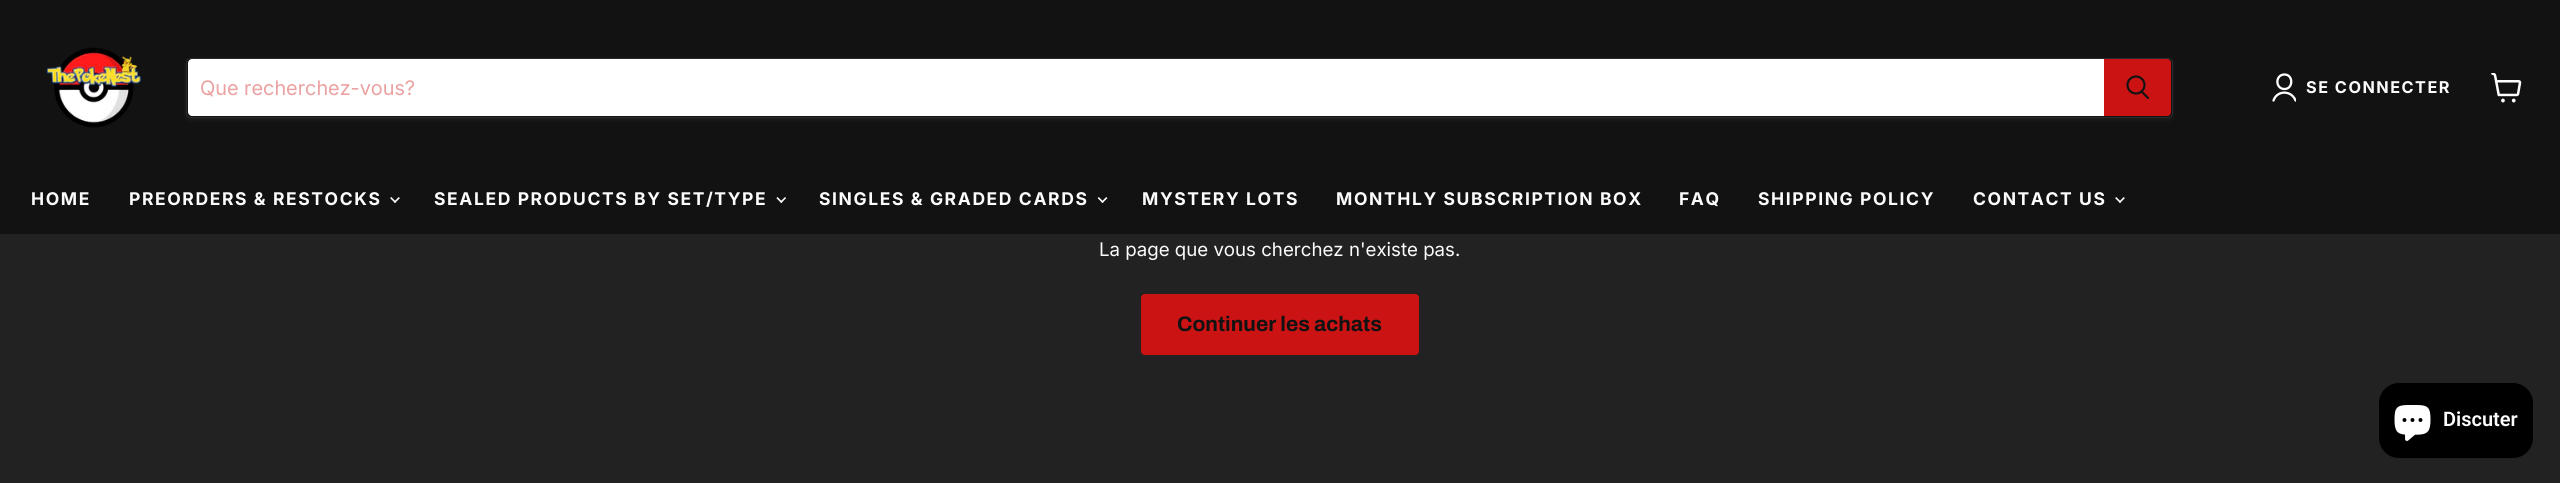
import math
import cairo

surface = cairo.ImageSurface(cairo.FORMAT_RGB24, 2560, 483)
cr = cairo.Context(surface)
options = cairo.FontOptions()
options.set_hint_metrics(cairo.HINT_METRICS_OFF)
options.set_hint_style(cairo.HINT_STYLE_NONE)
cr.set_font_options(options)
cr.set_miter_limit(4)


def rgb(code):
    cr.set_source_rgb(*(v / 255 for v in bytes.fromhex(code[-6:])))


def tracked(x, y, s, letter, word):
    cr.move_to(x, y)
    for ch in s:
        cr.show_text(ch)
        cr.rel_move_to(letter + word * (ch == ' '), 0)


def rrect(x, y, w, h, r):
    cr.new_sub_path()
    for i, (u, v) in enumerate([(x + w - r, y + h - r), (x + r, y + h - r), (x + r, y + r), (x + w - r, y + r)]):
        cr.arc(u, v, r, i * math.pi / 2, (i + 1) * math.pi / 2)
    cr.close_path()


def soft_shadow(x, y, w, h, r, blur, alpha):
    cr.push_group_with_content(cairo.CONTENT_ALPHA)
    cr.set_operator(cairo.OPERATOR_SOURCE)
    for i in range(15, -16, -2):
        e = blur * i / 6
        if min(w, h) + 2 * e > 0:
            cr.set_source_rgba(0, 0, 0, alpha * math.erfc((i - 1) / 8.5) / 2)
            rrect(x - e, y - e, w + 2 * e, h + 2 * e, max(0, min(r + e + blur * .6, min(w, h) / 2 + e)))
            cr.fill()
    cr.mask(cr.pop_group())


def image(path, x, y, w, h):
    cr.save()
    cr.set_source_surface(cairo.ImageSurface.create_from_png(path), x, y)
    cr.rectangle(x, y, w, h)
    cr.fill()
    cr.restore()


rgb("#222222")
cr.paint()
rgb("#121212")
cr.rectangle(0, 0, 2560, 234)
cr.fill()
image("img/1.png", 46, 47, 96, 81)
cr.save()
cr.set_fill_rule(cairo.FILL_RULE_EVEN_ODD)
cr.new_path()
cr.move_to(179, 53)
cr.line_to(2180, 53)
cr.line_to(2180, 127)
cr.line_to(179, 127)
cr.close_path()
cr.move_to(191, 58)
cr.line_to(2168, 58)
cr.curve_to(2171, 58, 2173, 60, 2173, 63)
cr.line_to(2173, 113)
cr.curve_to(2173, 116, 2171, 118, 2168, 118)
cr.line_to(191, 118)
cr.curve_to(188, 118, 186, 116, 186, 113)
cr.line_to(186, 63)
cr.curve_to(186, 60, 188, 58, 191, 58)
cr.close_path()
cr.clip()
rgb("#919191")
soft_shadow(186, 60, 1987, 60, 5, 2, 0.11)
cr.restore()
rrect(186.5, 58.5, 1986, 59, 4.5)
cr.set_source_rgba(0.569, 0.569, 0.569, 0.2)
cr.set_line_width(1)
cr.stroke()
rgb("#ffffff")
cr.new_path()
cr.move_to(192, 59)
cr.line_to(2104, 59)
cr.line_to(2104, 116)
cr.line_to(192, 116)
cr.curve_to(190, 116, 188, 114, 188, 112)
cr.line_to(188, 63)
cr.curve_to(188, 61, 190, 59, 192, 59)
cr.close_path()
cr.fill()
rgb("#cc1313")
cr.new_path()
cr.move_to(2104.5, 59.5)
cr.line_to(2167, 59.5)
cr.curve_to(2169, 59.5, 2170.5, 61, 2170.5, 63)
cr.line_to(2170.5, 112)
cr.curve_to(2170.5, 114, 2169, 115.5, 2167, 115.5)
cr.line_to(2104.5, 115.5)
cr.close_path()
cr.fill_preserve()
cr.stroke()
cr.new_path()
cr.move_to(2148, 98)
cr.line_to(2142, 92)
rgb("#121212")
cr.set_line_width(2.2)
cr.set_line_cap(cairo.LINE_CAP_ROUND)
cr.stroke()
cr.arc(2136, 85, 8.5, 0, 2 * math.pi)
cr.set_line_cap(cairo.LINE_CAP_BUTT)
cr.stroke()
cr.new_path()
cr.move_to(2284.5, 89)
cr.curve_to(2293.5, 89, 2293.5, 74.5, 2284.5, 74.5)
cr.curve_to(2275, 74.5, 2275, 89, 2284.5, 89)
cr.close_path()
rgb("#ffffff")
cr.set_line_width(2.3)
cr.set_line_cap(cairo.LINE_CAP_ROUND)
cr.set_line_join(cairo.LINE_JOIN_ROUND)
cr.stroke()
cr.save()
cr.rectangle(2271, 73, 25, 30)
cr.clip()
cr.new_path()
cr.move_to(2295.5, 100.5)
cr.curve_to(2291.5, 90, 2277, 90, 2273.5, 100.5)
cr.stroke()
cr.restore()
image("img/2.png", 2491, 73, 31, 30)
image("img/3.png", 390, 197, 10, 6)
image("img/4.png", 776, 197, 10, 6)
image("img/5.png", 1098, 197, 10, 6)
image("img/3.png", 2115, 197, 10, 6)
rgb("#cc1313")
rrect(1141.5, 294.5, 277, 60, 3.5)
cr.fill_preserve()
cr.set_line_width(1)
cr.set_line_cap(cairo.LINE_CAP_BUTT)
cr.set_line_join(cairo.LINE_JOIN_MITER)
cr.stroke()
rgb("#000000")
rrect(2379, 383, 154, 75, 20)
cr.fill()
image("img/6.png", 2394, 405, 37, 36)
cr.select_font_face("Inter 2")
cr.set_font_size(20)
rgb("#eba1a1")
cr.move_to(200, 95)
cr.show_text("Que recherchez-vous?")
cr.select_font_face("Inter", cairo.FONT_SLANT_NORMAL, cairo.FONT_WEIGHT_BOLD)
cr.set_font_size(16.25)
rgb("#fcfcfc")
tracked(2306, 93, "SE CONNECTER", 1.5, 0)
cr.set_font_size(17.5)
for x, y, s in [
    (31, 205, "HOME"),
    (129, 205, "PREORDERS & RESTOCKS"),
    (434, 205, "SEALED PRODUCTS BY SET/TYPE"),
    (819, 205, "SINGLES & GRADED CARDS"),
    (1142, 205, "MYSTERY LOTS"),
    (1336, 205, "MONTHLY SUBSCRIPTION BOX"),
    (1679, 205, "FAQ"),
    (1758, 205, "SHIPPING POLICY"),
    (1973, 205, "CONTACT US"),
]:
    tracked(x, y, s, 1.6, 0)
cr.select_font_face("Inter")
cr.set_font_size(18.75)
cr.move_to(1099, 256)
cr.show_text("La page que vous cherchez n'existe pas.")
cr.select_font_face("Archivo", cairo.FONT_SLANT_NORMAL, cairo.FONT_WEIGHT_BOLD)
cr.set_font_size(21)
rgb("#121212")
cr.move_to(1177, 331)
cr.show_text("Continuer les achats")
cr.select_font_face("Roboto SemiBold")
cr.set_font_size(20)
rgb("#fcfcfc")
cr.move_to(2443, 426)
cr.show_text("Discuter")
surface.write_to_png("page.png")
